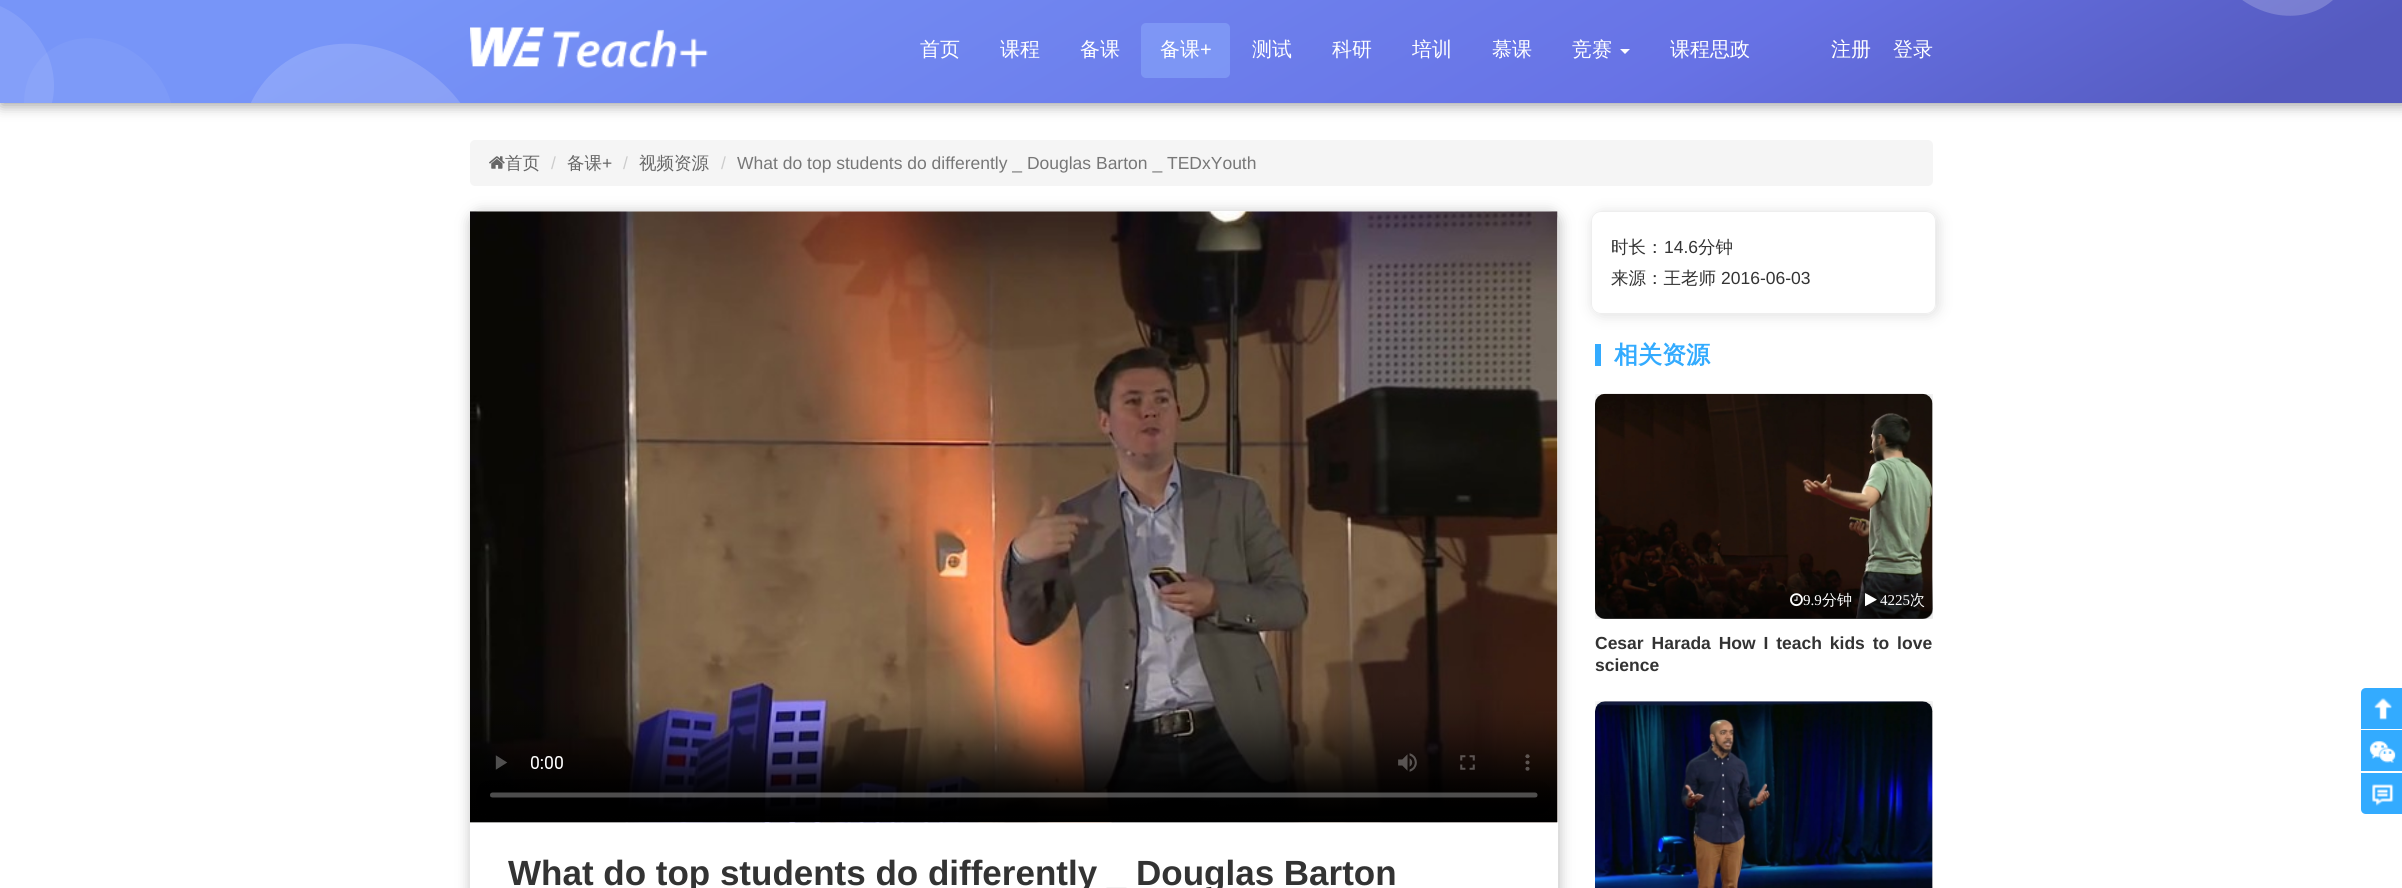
import math
import cairo

surface = cairo.ImageSurface(cairo.FORMAT_RGB24, 2402, 888)
cr = cairo.Context(surface)
options = cairo.FontOptions()
options.set_hint_metrics(cairo.HINT_METRICS_OFF)
options.set_hint_style(cairo.HINT_STYLE_NONE)
cr.set_font_options(options)
cr.set_miter_limit(4)


def rgb(code):
    cr.set_source_rgb(*(v / 255 for v in bytes.fromhex(code[-6:])))


def tracked(x, y, s, letter, word):
    cr.move_to(x, y)
    for ch in s:
        cr.show_text(ch)
        cr.rel_move_to(letter + word * (ch == ' '), 0)


def rrect(x, y, w, h, r):
    cr.new_sub_path()
    for i, (u, v) in enumerate([(x + w - r, y + h - r), (x + r, y + h - r), (x + r, y + r), (x + w - r, y + r)]):
        cr.arc(u, v, r, i * math.pi / 2, (i + 1) * math.pi / 2)
    cr.close_path()


def soft_shadow(x, y, w, h, r, blur, alpha):
    cr.push_group_with_content(cairo.CONTENT_ALPHA)
    cr.set_operator(cairo.OPERATOR_SOURCE)
    for i in range(15, -16, -2):
        e = blur * i / 6
        if min(w, h) + 2 * e > 0:
            cr.set_source_rgba(0, 0, 0, alpha * math.erfc((i - 1) / 8.5) / 2)
            rrect(x - e, y - e, w + 2 * e, h + 2 * e, max(0, min(r + e + blur * .6, min(w, h) / 2 + e)))
            cr.fill()
    cr.mask(cr.pop_group())


def image(path, x, y, w, h):
    cr.save()
    cr.set_source_surface(cairo.ImageSurface.create_from_png(path), x, y)
    cr.rectangle(x, y, w, h)
    cr.fill()
    cr.restore()


rgb("#ffffff")
cr.paint()
gradient = cairo.LinearGradient(879, -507, 1524, 610)
gradient.add_color_stop_rgba(0.15, 0.467, 0.584, 0.973, 1)
gradient.add_color_stop_rgba(0.7, 0.404, 0.447, 0.898, 1)
gradient.add_color_stop_rgba(0.94, 0.333, 0.353, 0.749, 1)
cr.set_source(gradient)
cr.rectangle(0, 0, 2402, 103)
cr.fill()
cr.set_source_rgba(1, 1, 1, 0.1)
cr.new_path()
cr.move_to(-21, 0)
cr.curve_to(20, 6, 54, 44, 54, 86)
cr.curve_to(54, 127, 20, 156, -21, 150)
cr.curve_to(-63, 144, -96, 106, -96, 64)
cr.curve_to(-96, 23, -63, -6, -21, 0)
cr.close_path()
cr.fill()
cr.set_source_rgba(1, 1, 1, 0.2)
cr.new_path()
cr.move_to(2279, -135)
cr.curve_to(2321, -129, 2354, -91, 2354, -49)
cr.curve_to(2354, -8, 2321, 21, 2279, 15)
cr.curve_to(2238, 9, 2204, -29, 2204, -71)
cr.curve_to(2204, -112, 2238, -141, 2279, -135)
cr.close_path()
cr.fill()
cr.set_source_rgba(1, 1, 1, 0.05)
cr.new_path()
cr.move_to(99, 39)
cr.curve_to(140, 45, 174, 83, 174, 124)
cr.curve_to(174, 166, 140, 195, 99, 189)
cr.curve_to(58, 183, 24, 145, 24, 103)
cr.curve_to(24, 62, 58, 33, 99, 39)
cr.close_path()
cr.fill()
cr.set_source_rgba(1, 1, 1, 0.15)
cr.new_path()
cr.move_to(365, 45)
cr.curve_to(434, 55, 490, 119, 490, 188)
cr.curve_to(490, 257, 434, 305, 365, 295)
cr.curve_to(296, 285, 240, 222, 240, 153)
cr.curve_to(240, 83, 296, 35, 365, 45)
cr.close_path()
cr.fill()
cr.save()
cr.set_fill_rule(cairo.FILL_RULE_EVEN_ODD)
cr.new_path()
cr.move_to(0, 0)
cr.line_to(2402, 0)
cr.line_to(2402, 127)
cr.line_to(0, 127)
cr.close_path()
cr.move_to(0, 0)
cr.line_to(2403, 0)
cr.line_to(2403, 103)
cr.line_to(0, 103)
cr.close_path()
cr.clip()
rgb("#999999")
soft_shadow(1, 3, 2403, 102, 0, 7, 1)
cr.restore()
image("img/1.png", 470, 27, 238, 41)
cr.set_source_rgba(0.522, 0.627, 0.976, 0.7)
rrect(1141, 23, 89, 55, 5)
cr.fill()
rgb("#ffffff")
cr.new_path()
cr.move_to(1620, 49)
cr.line_to(1630, 49)
cr.line_to(1625, 54)
cr.close_path()
cr.fill()
rgb("#f5f5f5")
rrect(470, 140, 1463, 46, 5)
cr.fill()
image("img/2.png", 489, 156, 16, 13)
cr.save()
cr.set_fill_rule(cairo.FILL_RULE_EVEN_ODD)
cr.new_path()
cr.move_to(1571, 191)
cr.line_to(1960, 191)
cr.line_to(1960, 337)
cr.line_to(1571, 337)
cr.close_path()
cr.move_to(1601, 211)
cr.line_to(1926, 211)
cr.curve_to(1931.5, 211, 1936, 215.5, 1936, 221)
cr.line_to(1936, 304)
cr.curve_to(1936, 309.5, 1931.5, 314, 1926, 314)
cr.line_to(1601, 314)
cr.curve_to(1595.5, 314, 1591, 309.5, 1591, 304)
cr.line_to(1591, 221)
cr.curve_to(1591, 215.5, 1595.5, 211, 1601, 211)
cr.close_path()
cr.clip()
rgb("#dddddd")
soft_shadow(1593, 213, 345, 102, 10, 7, 1)
cr.restore()
rrect(1591.5, 211.5, 344, 102, 9.5)
rgb("#eeeeee")
cr.set_line_width(1)
cr.stroke()
rgb("#33abff")
cr.rectangle(1595, 344, 6, 22)
cr.fill()
cr.save()
cr.rectangle(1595, 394, 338, 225)
cr.clip()
rgb("#cccccc")
soft_shadow(1596, 395, 338, 225, 10, 7, 1)
cr.restore()
image("img/3.png", 1595, 393, 338, 226)
gradient = cairo.LinearGradient(1764, 576, 1764, 619)
gradient.add_color_stop_rgba(0, 0, 0, 0, 0)
gradient.add_color_stop_rgba(1, 0, 0, 0, 0.6)
cr.set_source(gradient)
cr.new_path()
cr.move_to(1595, 576)
cr.line_to(1933, 576)
cr.line_to(1933, 609)
cr.curve_to(1933, 614.5, 1928.5, 619, 1923, 619)
cr.line_to(1605, 619)
cr.curve_to(1599.5, 619, 1595, 614.5, 1595, 609)
cr.close_path()
cr.fill()
image("img/4.png", 1790, 593, 13, 14)
image("img/5.png", 1865, 593, 12, 14)
cr.save()
cr.rectangle(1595, 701, 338, 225)
cr.clip()
rgb("#cccccc")
soft_shadow(1596, 703, 338, 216, 10, 7, 1)
cr.restore()
image("img/6.png", 1595, 701, 338, 187)
gradient = cairo.LinearGradient(1764, 884, 1764, 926)
gradient.add_color_stop_rgba(0, 0, 0, 0, 0)
gradient.add_color_stop_rgba(1, 0, 0, 0, 0.6)
cr.set_source(gradient)
cr.rectangle(1595, 886, 338, 2)
cr.fill()
cr.save()
cr.set_fill_rule(cairo.FILL_RULE_EVEN_ODD)
cr.new_path()
cr.move_to(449, 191)
cr.line_to(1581, 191)
cr.line_to(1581, 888)
cr.line_to(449, 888)
cr.close_path()
cr.move_to(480, 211)
cr.line_to(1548, 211)
cr.curve_to(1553.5, 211, 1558, 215.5, 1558, 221)
cr.line_to(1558, 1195)
cr.curve_to(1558, 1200.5, 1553.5, 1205, 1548, 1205)
cr.line_to(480, 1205)
cr.curve_to(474.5, 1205, 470, 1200.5, 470, 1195)
cr.line_to(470, 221)
cr.curve_to(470, 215.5, 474.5, 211, 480, 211)
cr.close_path()
cr.clip()
rgb("#bbbbbb")
soft_shadow(471, 213, 1088, 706, 10, 7, 1)
cr.restore()
image("img/7.png", 470, 211, 1088, 612)
rgb("#33abff")
cr.new_path()
cr.move_to(2366, 688)
cr.line_to(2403, 688)
cr.line_to(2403, 729)
cr.line_to(2361, 729)
cr.line_to(2361, 693)
cr.curve_to(2361, 690, 2363, 688, 2366, 688)
cr.close_path()
cr.fill()
image("img/8.png", 2374, 698, 18, 22)
cr.rectangle(2361, 730, 41, 41)
cr.fill()
image("img/9.png", 2369, 741, 27, 22)
cr.new_path()
cr.move_to(2361, 773)
cr.line_to(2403, 773)
cr.line_to(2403, 814)
cr.line_to(2366, 814)
cr.curve_to(2363, 814, 2361, 812, 2361, 809)
cr.close_path()
cr.fill()
image("img/10.png", 2372, 784, 22, 22)
cr.select_font_face("WenQuanYi Zen Hei Medium")
cr.set_font_size(20)
rgb("#ffffff")
for x, y, s in [
    (920, 56, "首页"),
    (1000, 56, "课程"),
    (1080, 56, "备课"),
    (1160, 56, "备课"),
]:
    cr.move_to(x, y)
    cr.show_text(s)
cr.select_font_face("Liberation Sans")
cr.move_to(1200, 56)
cr.show_text("+")
cr.select_font_face("WenQuanYi Zen Hei Medium")
for x, y, s in [
    (1252, 56, "测试"),
    (1332, 56, "科研"),
    (1412, 56, "培训"),
    (1492, 56, "慕课"),
    (1572, 56, "竞赛"),
    (1670, 56, "课程思政"),
    (1831, 56, "注册"),
    (1893, 56, "登录"),
]:
    cr.move_to(x, y)
    cr.show_text(s)
cr.set_font_size(17.5)
rgb("#666666")
cr.move_to(505, 169)
cr.show_text("首页")
cr.select_font_face("Liberation Sans")
rgb("#cccccc")
cr.move_to(551, 169)
cr.show_text("/")
cr.select_font_face("WenQuanYi Zen Hei Medium")
rgb("#666666")
cr.move_to(567, 169)
cr.show_text("备课")
cr.select_font_face("Liberation Sans")
cr.move_to(602, 169)
cr.show_text("+")
rgb("#cccccc")
cr.move_to(623, 169)
cr.show_text("/")
cr.select_font_face("WenQuanYi Zen Hei Medium")
rgb("#666666")
cr.move_to(639, 169)
cr.show_text("视频资源")
cr.select_font_face("Liberation Sans")
rgb("#cccccc")
cr.move_to(721, 169)
cr.show_text("/")
rgb("#777777")
cr.move_to(737, 169)
cr.show_text("What do top students do differently _ Douglas Barton _ TEDxYouth")
cr.select_font_face("WenQuanYi Zen Hei Medium")
rgb("#333333")
cr.move_to(1611, 253)
cr.show_text("时长：")
cr.select_font_face("Liberation Sans")
cr.move_to(1664, 253)
cr.show_text("14.6")
cr.select_font_face("WenQuanYi Zen Hei Medium")
cr.move_to(1698, 253)
cr.show_text("分钟")
cr.move_to(1611, 284)
cr.show_text("来源：王老师")
cr.select_font_face("Liberation Sans")
cr.move_to(1721, 284)
cr.show_text("2016-06-03")
cr.select_font_face("WenQuanYi Zen Hei", cairo.FONT_SLANT_NORMAL, cairo.FONT_WEIGHT_BOLD)
cr.set_font_size(24)
rgb("#33abff")
cr.move_to(1614, 363)
cr.show_text("相关资源")
cr.select_font_face("Liberation Serif")
cr.set_font_size(15)
rgb("#ffffff")
cr.move_to(1803, 605)
cr.show_text("9.9")
cr.select_font_face("WenQuanYi Zen Hei Medium")
cr.move_to(1822, 605)
cr.show_text("分钟")
cr.select_font_face("Liberation Serif")
cr.move_to(1880, 605)
cr.show_text("4225")
cr.select_font_face("WenQuanYi Zen Hei Medium")
cr.move_to(1910, 605)
cr.show_text("次")
cr.select_font_face("Liberation Sans", cairo.FONT_SLANT_NORMAL, cairo.FONT_WEIGHT_BOLD)
cr.set_font_size(17.5)
rgb("#333333")
tracked(1595, 649, "Cesar Harada How I teach kids to love", 0, 3)
cr.move_to(1595, 671)
cr.show_text("science")
cr.set_font_size(35)
cr.move_to(508, 885)
cr.show_text("What do top students do differently _ Douglas Barton")
surface.write_to_png("page.png")
